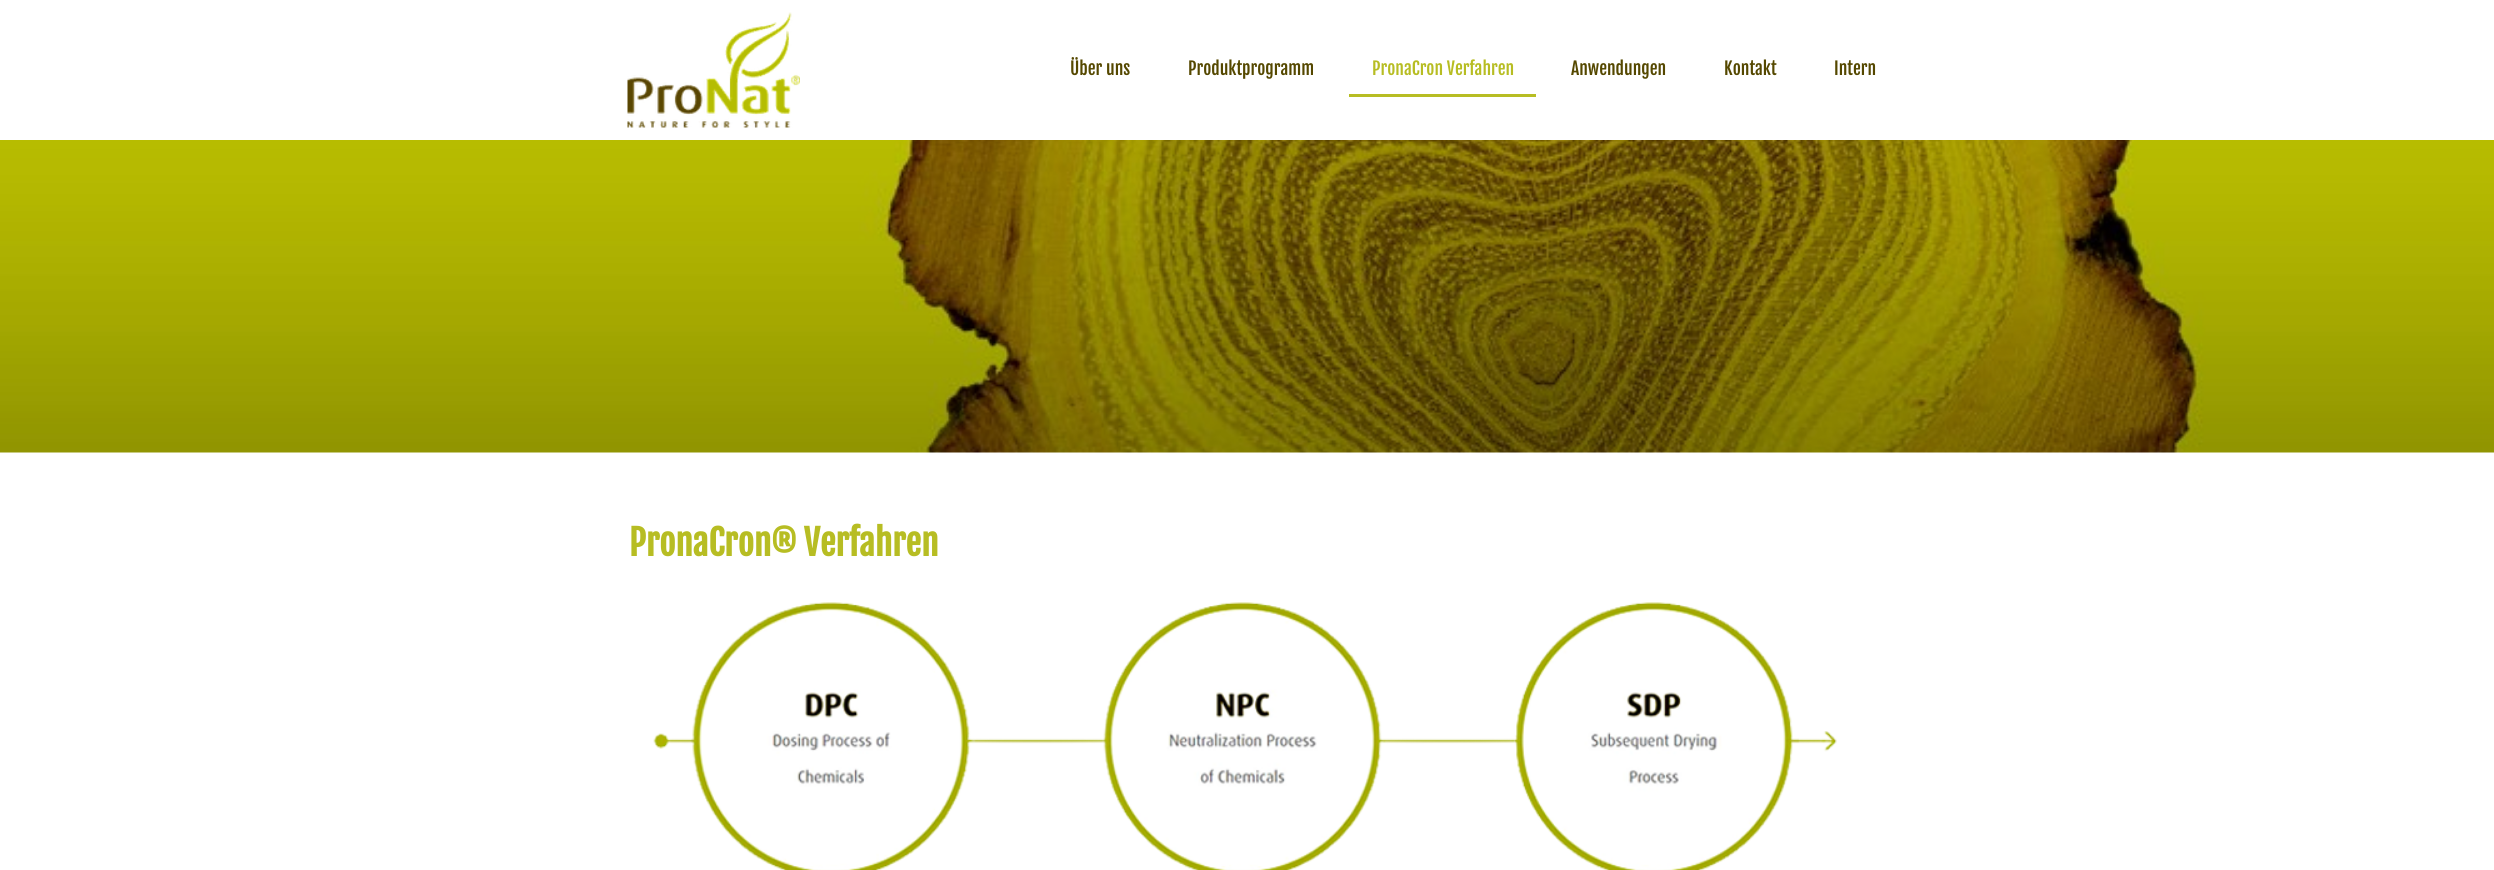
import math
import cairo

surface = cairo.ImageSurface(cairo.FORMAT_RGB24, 2494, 870)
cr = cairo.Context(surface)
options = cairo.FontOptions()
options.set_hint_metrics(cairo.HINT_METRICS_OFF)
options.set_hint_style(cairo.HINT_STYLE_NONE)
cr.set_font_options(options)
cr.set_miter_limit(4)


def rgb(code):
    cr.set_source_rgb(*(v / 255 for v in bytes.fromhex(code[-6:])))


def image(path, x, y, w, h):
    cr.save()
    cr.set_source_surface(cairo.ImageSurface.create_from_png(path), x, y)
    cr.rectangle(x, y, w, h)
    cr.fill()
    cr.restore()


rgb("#ffffff")
cr.paint()
image("img/1.png", 627, 12, 173, 116)
rgb("#b7bd23")
cr.rectangle(1349, 94, 187, 3)
cr.fill()
image("img/2.png", 0, 140, 2494, 313)
image("img/3.png", 653, 602, 1184, 268)
cr.select_font_face("Fjalla One")
cr.set_font_size(17.5)
rgb("#554800")
cr.move_to(1070, 75)
cr.show_text("Über uns")
cr.move_to(1188, 75)
cr.show_text("Produktprogramm")
rgb("#b7bd23")
cr.move_to(1372, 75)
cr.show_text("PronaCron Verfahren")
rgb("#554800")
for x, y, s in [
    (1571, 75, "Anwendungen"),
    (1724, 75, "Kontakt"),
    (1834, 75, "Intern"),
]:
    cr.move_to(x, y)
    cr.show_text(s)
cr.select_font_face("Fjalla One", cairo.FONT_SLANT_NORMAL, cairo.FONT_WEIGHT_BOLD)
cr.set_font_size(35)
rgb("#b7bd23")
cr.move_to(629, 556)
cr.show_text("PronaCron® Verfahren")
surface.write_to_png("page.png")
